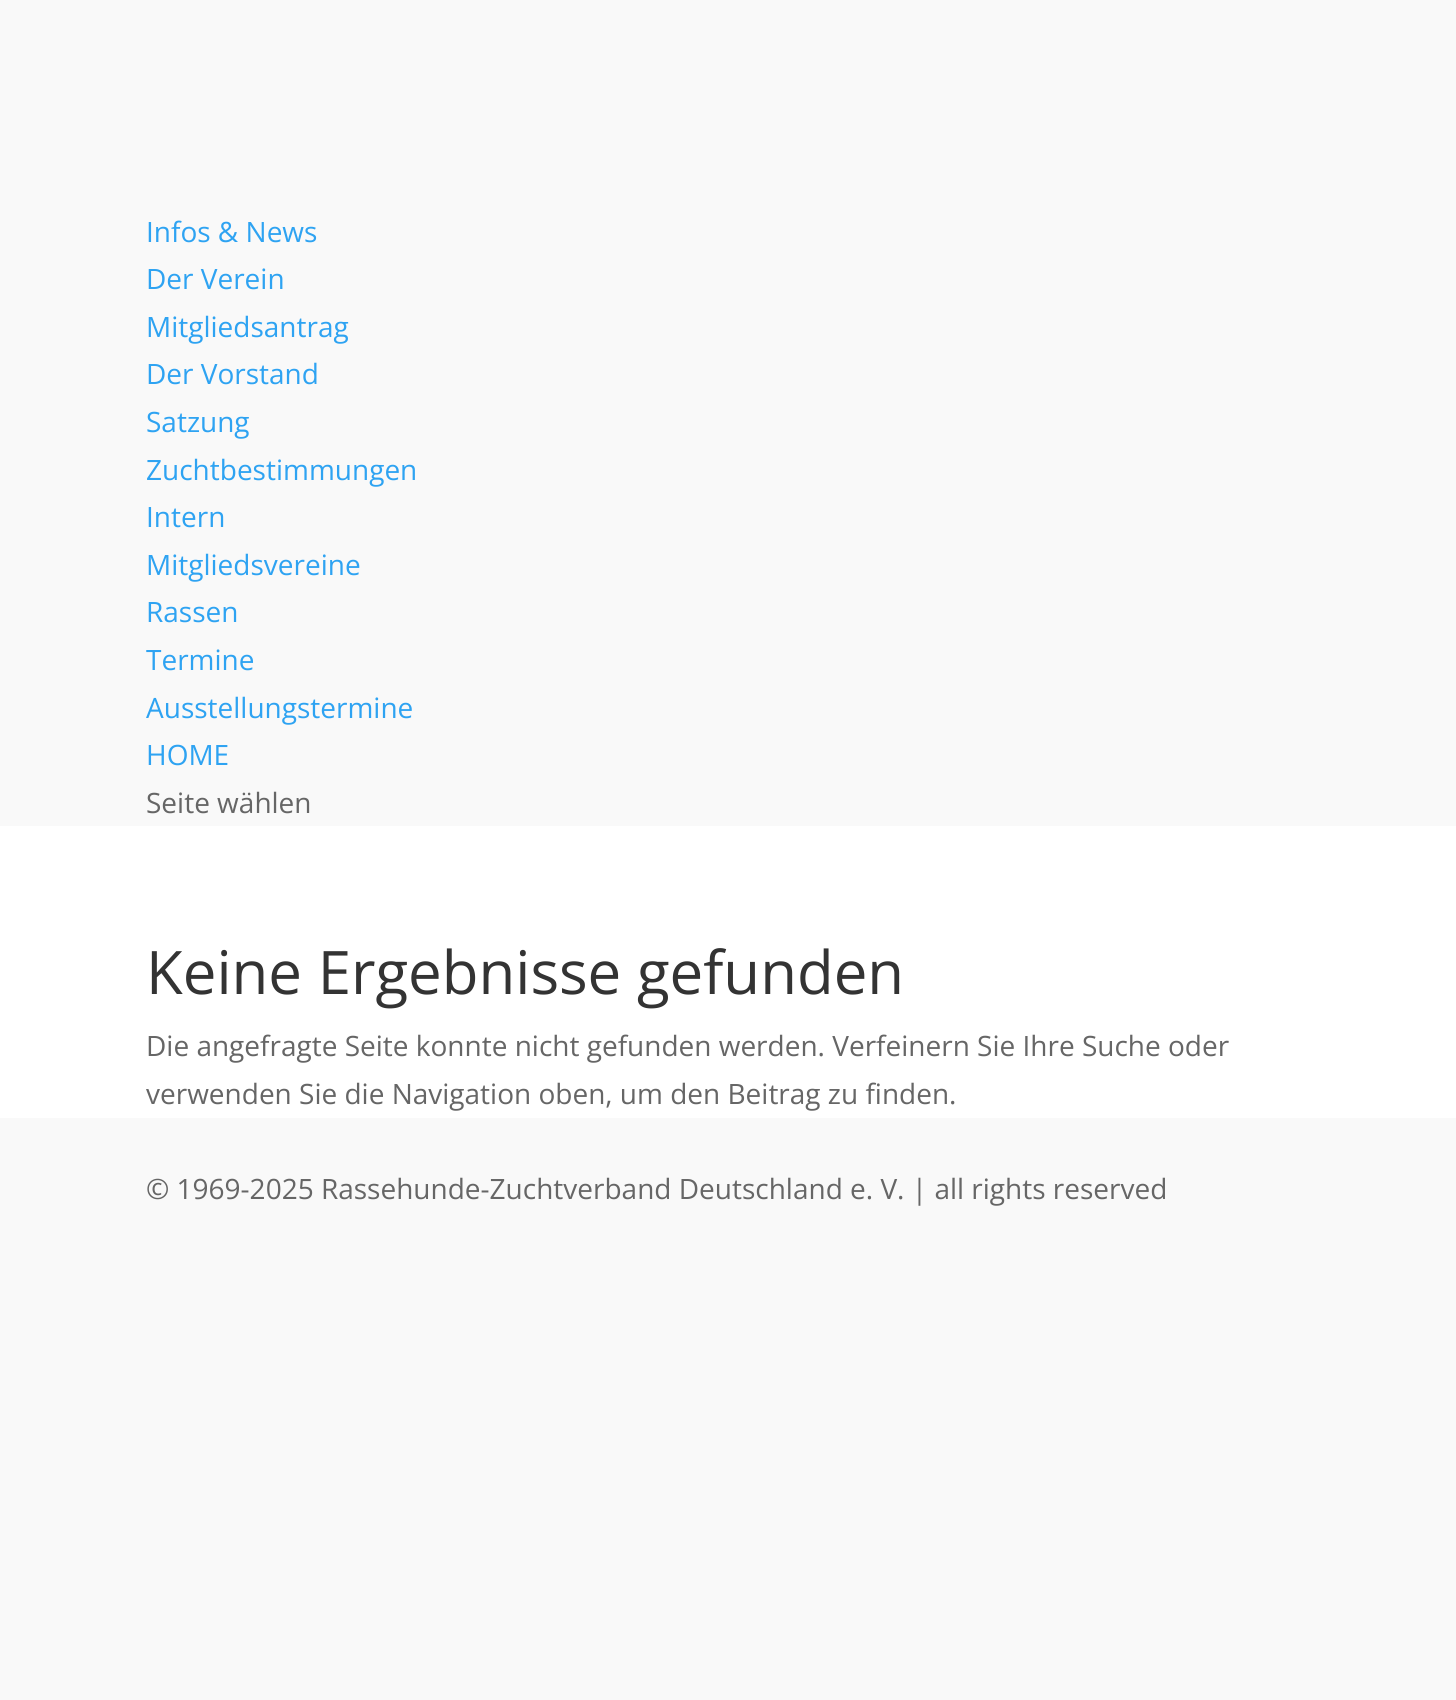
import math
import cairo

surface = cairo.ImageSurface(cairo.FORMAT_RGB24, 1456, 1700)
cr = cairo.Context(surface)
options = cairo.FontOptions()
options.set_hint_metrics(cairo.HINT_METRICS_OFF)
options.set_hint_style(cairo.HINT_STYLE_NONE)
cr.set_font_options(options)
cr.set_miter_limit(4)


def rgb(code):
    cr.set_source_rgb(*(v / 255 for v in bytes.fromhex(code[-6:])))


rgb("#f9f9f9")
cr.paint()
rgb("#ffffff")
cr.rectangle(0, 826, 1456, 292)
cr.fill()
cr.select_font_face("Open Sans")
cr.set_font_size(28)
rgb("#2ea3f2")
for x, y, s in [
    (146, 242, "Infos & News"),
    (146, 289, "Der Verein"),
    (146, 337, "Mitgliedsantrag"),
    (146, 384, "Der Vorstand"),
    (146, 432, "Satzung"),
    (146, 480, "Zuchtbestimmungen"),
    (146, 527, "Intern"),
    (146, 575, "Mitgliedsvereine"),
    (146, 622, "Rassen"),
    (146, 670, "Termine"),
    (146, 718, "Ausstellungstermine"),
    (146, 765, "HOME"),
]:
    cr.move_to(x, y)
    cr.show_text(s)
rgb("#666666")
cr.move_to(146, 813)
cr.show_text("Seite wählen")
cr.set_font_size(60)
rgb("#333333")
cr.move_to(146, 994)
cr.show_text("Keine Ergebnisse gefunden")
cr.set_font_size(28)
rgb("#666666")
for x, y, s in [
    (146, 1056, "Die angefragte Seite konnte nicht gefunden werden. Verfeinern Sie Ihre Suche oder"),
    (146, 1104, "verwenden Sie die Navigation oben, um den Beitrag zu finden."),
    (146, 1199, "© 1969-2025 Rassehunde-Zuchtverband Deutschland e. V. | all rights reserved"),
]:
    cr.move_to(x, y)
    cr.show_text(s)
surface.write_to_png("page.png")
